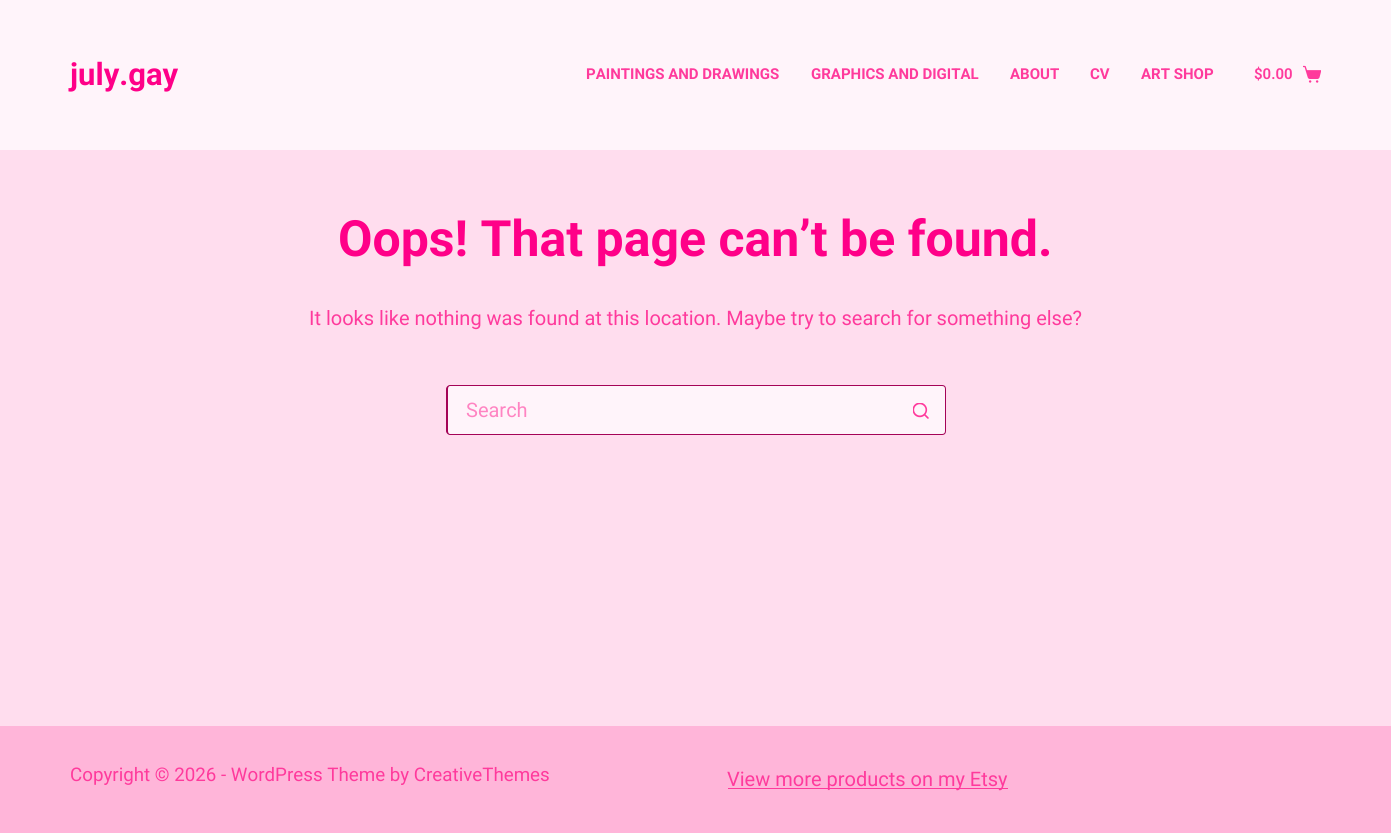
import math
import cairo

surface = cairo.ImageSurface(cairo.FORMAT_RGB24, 1391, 833)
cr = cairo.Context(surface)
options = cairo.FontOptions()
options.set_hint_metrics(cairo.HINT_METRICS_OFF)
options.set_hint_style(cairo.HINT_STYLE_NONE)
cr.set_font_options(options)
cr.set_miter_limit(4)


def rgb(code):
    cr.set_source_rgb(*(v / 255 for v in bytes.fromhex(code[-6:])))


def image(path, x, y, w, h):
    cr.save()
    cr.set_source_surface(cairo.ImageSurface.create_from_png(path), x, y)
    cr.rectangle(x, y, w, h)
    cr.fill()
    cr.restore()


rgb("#ffddee")
cr.paint()
rgb("#fff4fa")
cr.rectangle(0, 0, 1391, 150)
cr.fill()
image("img/1.png", 1303, 65, 18, 18)
cr.new_path()
cr.move_to(450, 385)
cr.line_to(896, 385)
cr.line_to(896, 435)
cr.line_to(450, 435)
cr.curve_to(448, 435, 446, 433, 446, 431)
cr.line_to(446, 389)
cr.curve_to(446, 387, 448, 385, 450, 385)
cr.close_path()
cr.fill()
rgb("#a50357")
cr.set_fill_rule(cairo.FILL_RULE_EVEN_ODD)
cr.new_path()
cr.move_to(450, 385)
cr.line_to(896, 385)
cr.line_to(896, 435)
cr.line_to(450, 435)
cr.curve_to(448, 435, 446, 433, 446, 431)
cr.line_to(446, 389)
cr.curve_to(446, 387, 448, 385, 450, 385)
cr.close_path()
cr.move_to(450, 386)
cr.line_to(896, 386)
cr.line_to(896, 434)
cr.line_to(450, 434)
cr.curve_to(449, 434, 448, 433, 448, 431)
cr.line_to(448, 389)
cr.curve_to(448, 387, 449, 386, 450, 386)
cr.close_path()
cr.fill()
rgb("#fff4fa")
cr.new_path()
cr.move_to(896, 385)
cr.line_to(942, 385)
cr.curve_to(944, 385, 946, 387, 946, 389)
cr.line_to(946, 431)
cr.curve_to(946, 433, 944, 435, 942, 435)
cr.line_to(896, 435)
cr.close_path()
cr.fill()
rgb("#a50357")
cr.new_path()
cr.move_to(896, 385)
cr.line_to(942, 385)
cr.curve_to(945, 385, 946, 387, 946, 389)
cr.line_to(946, 431)
cr.curve_to(946, 433, 945, 435, 942, 435)
cr.line_to(896, 435)
cr.close_path()
cr.move_to(896, 386)
cr.line_to(942, 386)
cr.curve_to(944, 386, 945, 387, 945, 389)
cr.line_to(945, 431)
cr.curve_to(945, 433, 944, 434, 942, 434)
cr.line_to(896, 434)
cr.close_path()
cr.fill()
image("img/2.png", 913, 403, 16, 16)
rgb("#ffb5d9")
cr.rectangle(0, 726, 1391, 107)
cr.fill()
rgb("#ff3a9c")
cr.rectangle(728, 788, 280, 1)
cr.fill()
cr.select_font_face("Roboto", cairo.FONT_SLANT_NORMAL, cairo.FONT_WEIGHT_BOLD)
cr.set_font_size(31)
rgb("#ff0088")
cr.move_to(70, 85)
cr.show_text("july.gay")
cr.set_font_size(15)
rgb("#ff3a9c")
for x, y, s in [
    (586, 79, "PAINTINGS AND DRAWINGS"),
    (811, 79, "GRAPHICS AND DIGITAL"),
    (1010, 79, "ABOUT"),
    (1090, 79, "CV"),
    (1141, 79, "ART SHOP"),
]:
    cr.move_to(x, y)
    cr.show_text(s)
cr.select_font_face("Roboto SemiBold")
cr.move_to(1254, 79)
cr.show_text("$0.00")
cr.select_font_face("Roboto", cairo.FONT_SLANT_NORMAL, cairo.FONT_WEIGHT_BOLD)
cr.set_font_size(50)
rgb("#ff0088")
cr.move_to(338, 256)
cr.show_text("Oops! That page can’t be found.")
cr.select_font_face("Roboto")
cr.set_font_size(20)
rgb("#ff3a9c")
cr.move_to(309, 325)
cr.show_text("It looks like nothing was found at this location. Maybe try to search for something else?")
rgb("#ff84c2")
cr.move_to(466, 417)
cr.show_text("Search")
cr.set_font_size(18.75)
rgb("#ff3a9c")
cr.move_to(70, 781)
cr.show_text("Copyright © 2026 - WordPress Theme by CreativeThemes")
cr.set_font_size(20)
cr.move_to(727, 786)
cr.show_text("View more products on my Etsy")
surface.write_to_png("page.png")
